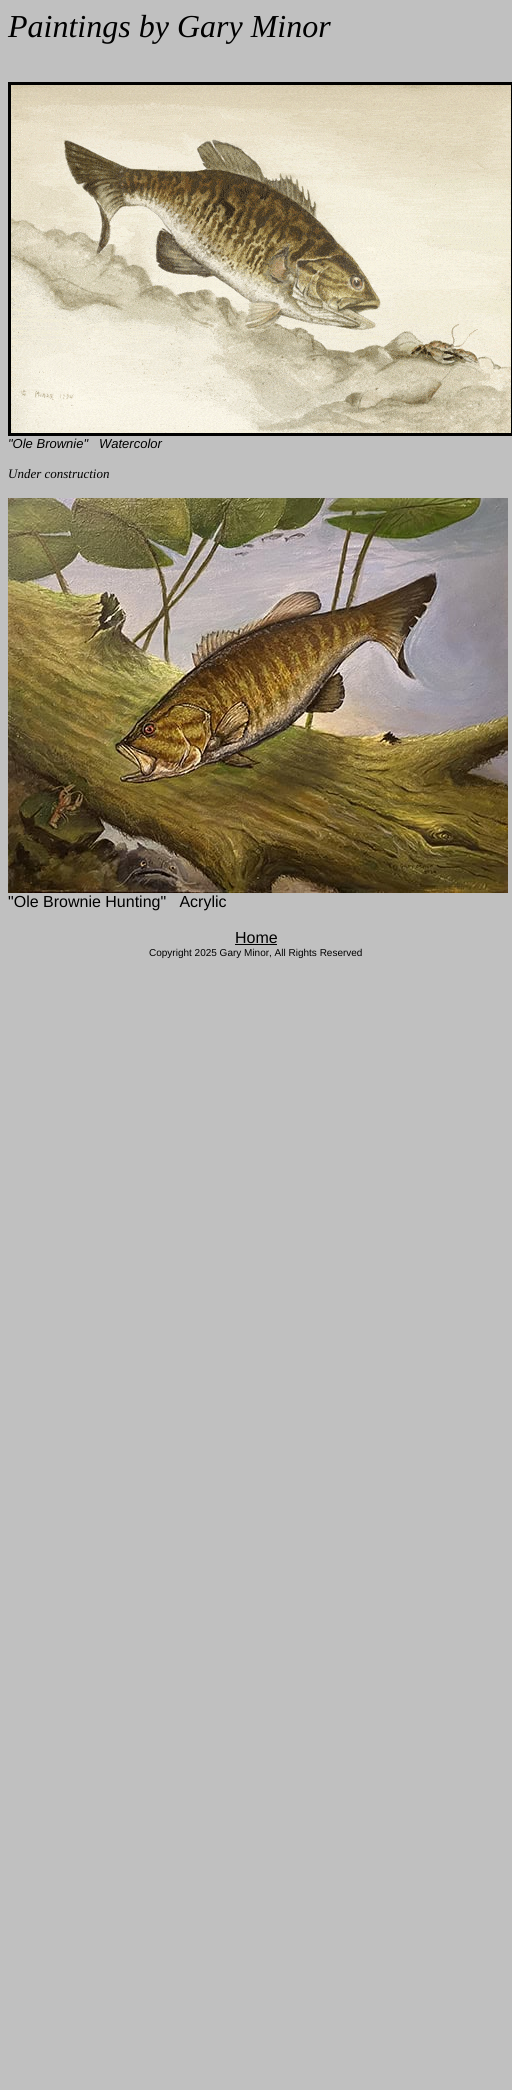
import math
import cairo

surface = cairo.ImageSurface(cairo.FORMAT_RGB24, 512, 2090)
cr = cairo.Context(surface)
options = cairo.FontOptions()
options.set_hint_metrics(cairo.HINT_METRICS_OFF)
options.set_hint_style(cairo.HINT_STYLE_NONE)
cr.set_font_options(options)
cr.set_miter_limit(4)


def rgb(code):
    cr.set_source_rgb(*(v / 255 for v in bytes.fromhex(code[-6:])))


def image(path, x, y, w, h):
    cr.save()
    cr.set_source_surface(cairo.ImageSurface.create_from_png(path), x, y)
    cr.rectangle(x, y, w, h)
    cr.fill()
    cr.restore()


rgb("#c0c0c0")
cr.paint()
cr.rectangle(9.5, 83.5, 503, 351)
rgb("#000000")
cr.set_line_width(3)
cr.stroke()
image("img/1.png", 11, 85, 500, 348)
image("img/2.png", 8, 498, 500, 395)
cr.rectangle(235, 944, 42, 1)
cr.fill()
cr.select_font_face("Liberation Serif", cairo.FONT_SLANT_ITALIC)
cr.set_font_size(32)
cr.move_to(8, 37)
cr.show_text("Paintings by Gary Minor")
cr.select_font_face("Liberation Sans", cairo.FONT_SLANT_ITALIC)
cr.set_font_size(13)
cr.move_to(8, 448)
cr.show_text("\"Ole Brownie\"")
cr.move_to(99, 448)
cr.show_text("Watercolor")
cr.select_font_face("Liberation Serif", cairo.FONT_SLANT_ITALIC)
cr.move_to(8, 478)
cr.show_text("Under construction")
cr.select_font_face("Liberation Sans")
cr.set_font_size(16)
cr.move_to(8, 907)
cr.show_text("\"Ole Brownie Hunting\"   Acrylic")
cr.move_to(235, 943)
cr.show_text("Home")
cr.set_font_size(10)
cr.move_to(149, 956)
cr.show_text("Copyright 2025 Gary Minor, All Rights Reserved")
surface.write_to_png("page.png")
